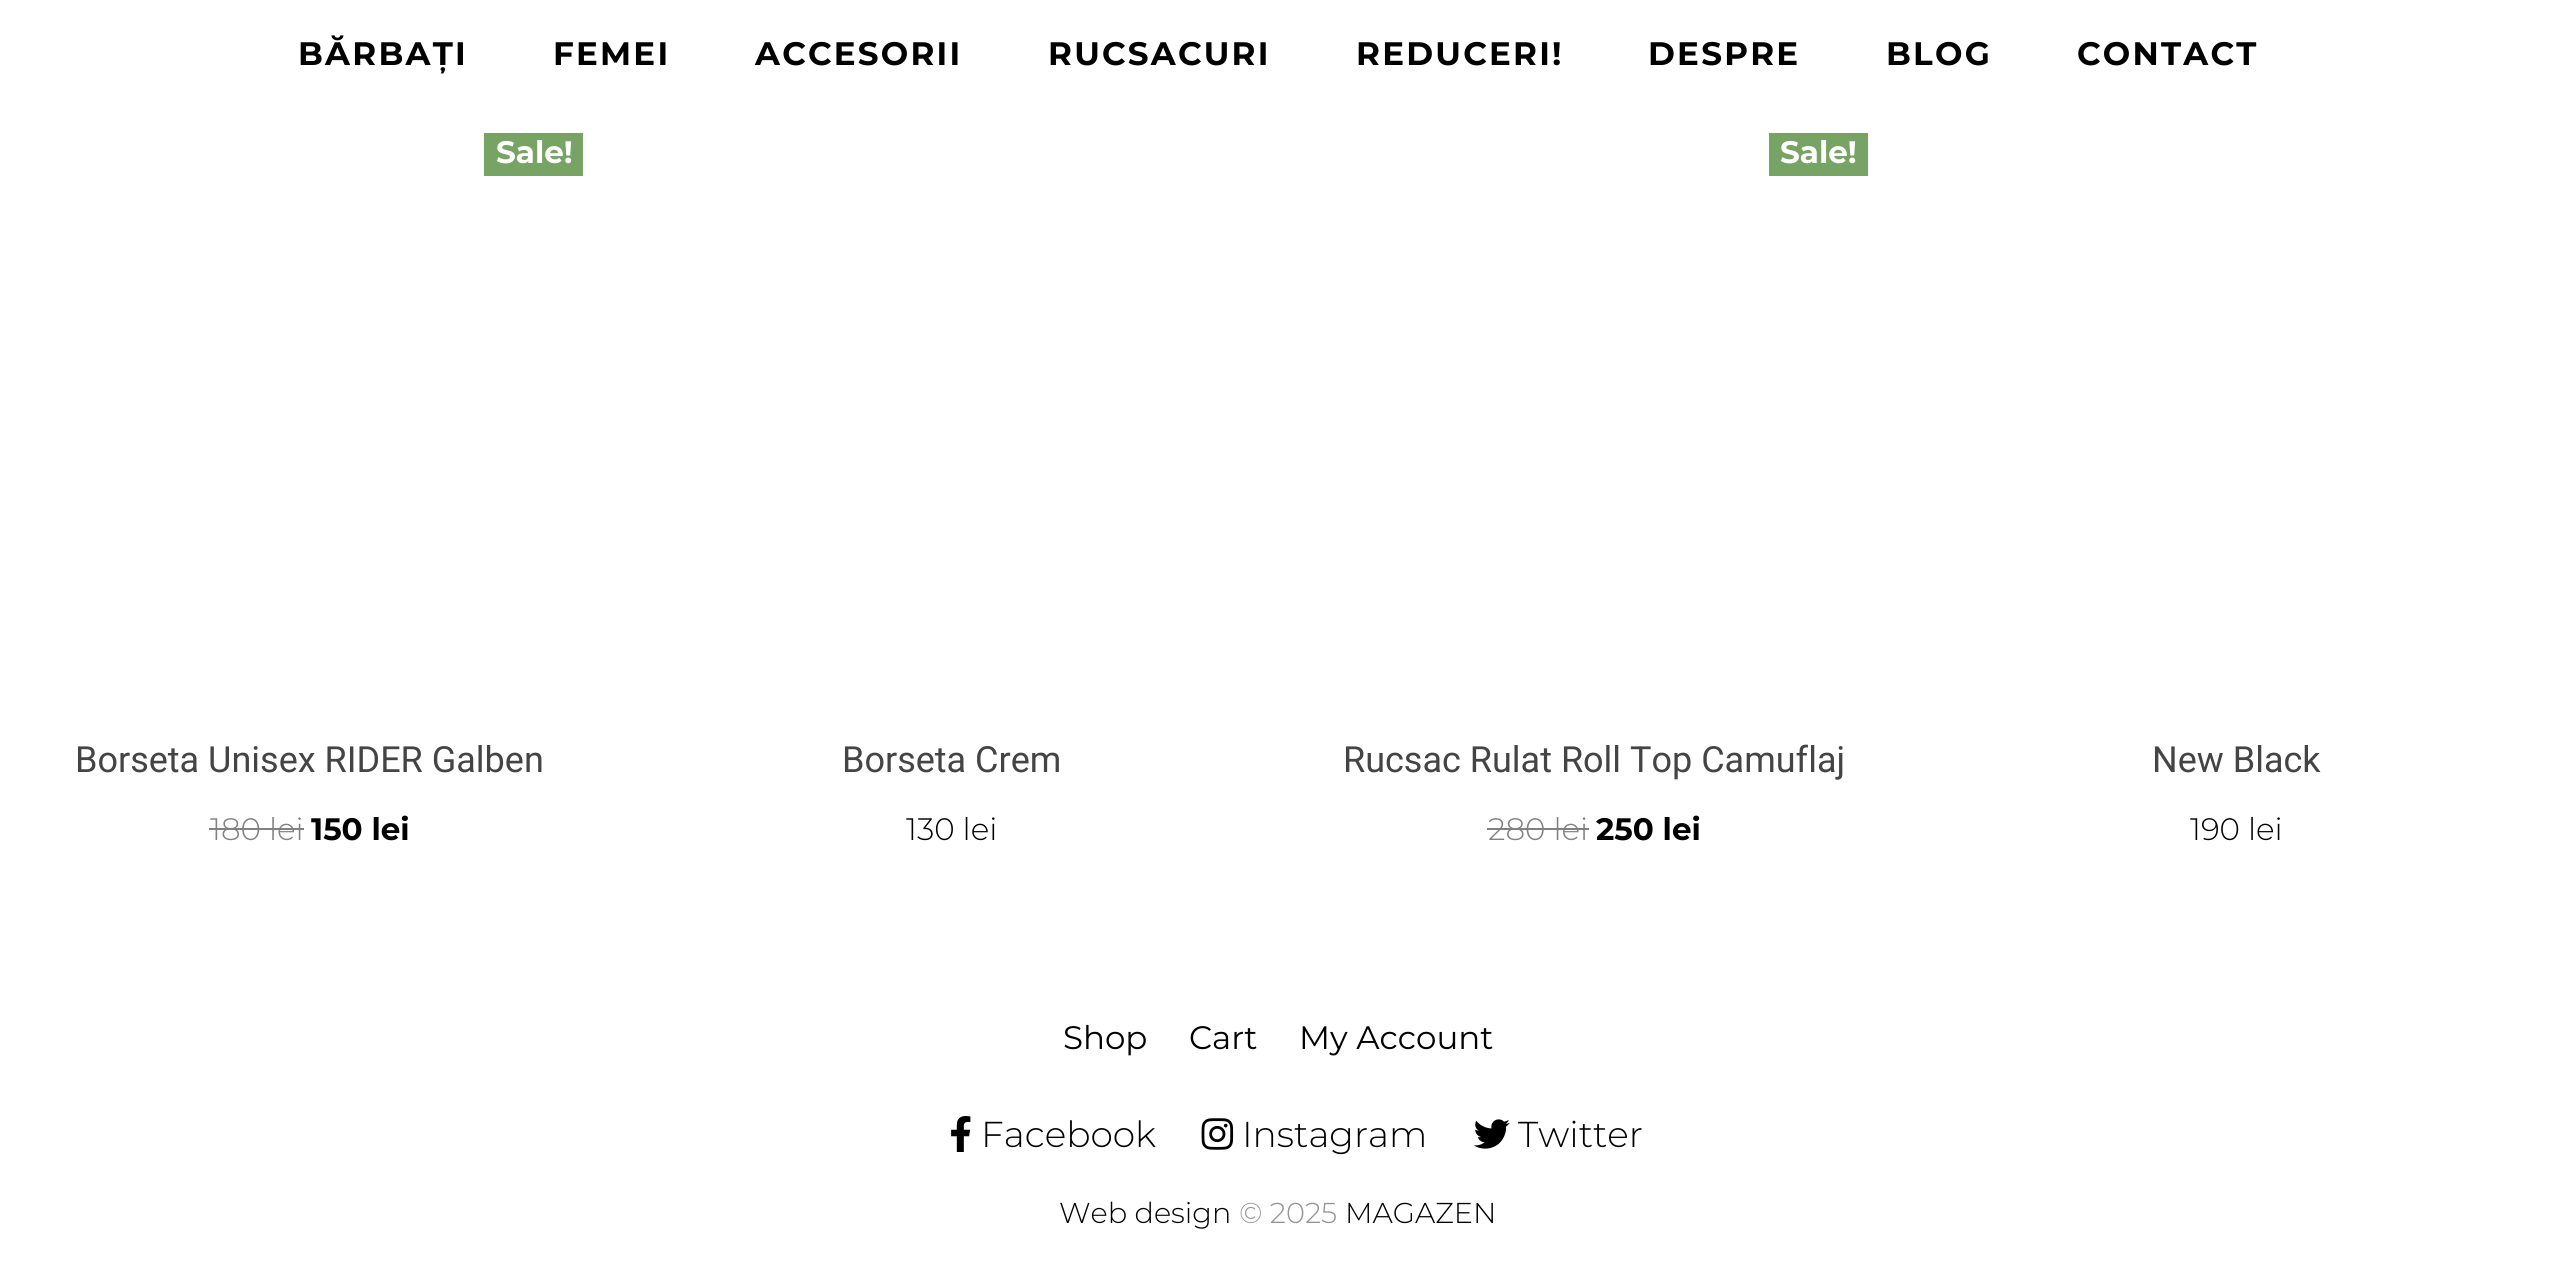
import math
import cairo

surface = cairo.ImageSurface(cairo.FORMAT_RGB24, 2555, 1277)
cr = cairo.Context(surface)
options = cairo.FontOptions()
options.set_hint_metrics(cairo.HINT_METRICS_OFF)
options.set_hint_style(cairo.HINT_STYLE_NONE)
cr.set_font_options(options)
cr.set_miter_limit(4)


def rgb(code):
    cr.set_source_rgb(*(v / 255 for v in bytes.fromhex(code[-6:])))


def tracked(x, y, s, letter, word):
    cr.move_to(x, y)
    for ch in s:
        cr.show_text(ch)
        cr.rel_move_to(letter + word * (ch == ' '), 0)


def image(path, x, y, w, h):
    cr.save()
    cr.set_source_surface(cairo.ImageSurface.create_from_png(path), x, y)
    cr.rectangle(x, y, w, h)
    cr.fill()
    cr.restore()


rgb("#ffffff")
cr.paint()
for x, y, w, h, color in [
    (484, 133, 99, 43, "#77a464"),
    (209, 828, 95, 2, "#808080"),
    (1769, 133, 99, 43, "#77a464"),
    (1487, 828, 102, 2, "#808080"),
]:
    rgb(color)
    cr.rectangle(x, y, w, h)
    cr.fill()
image("img/1.png", 951, 1116, 20, 36)
image("img/2.png", 1201, 1118, 33, 32)
image("img/3.png", 1474, 1119, 36, 30)
cr.select_font_face("Montserrat", cairo.FONT_SLANT_NORMAL, cairo.FONT_WEIGHT_BOLD)
cr.set_font_size(32.5)
rgb("#000000")
for x, y, s in [
    (298, 65, "BĂRBAȚI"),
    (553, 65, "FEMEI"),
    (755, 65, "ACCESORII"),
    (1048, 65, "RUCSACURI"),
    (1356, 65, "REDUCERI!"),
    (1648, 65, "DESPRE"),
    (1886, 65, "BLOG"),
    (2077, 65, "CONTACT"),
]:
    tracked(x, y, s, 2.25, 0)
cr.set_font_size(31)
rgb("#ffffff")
cr.move_to(496, 163)
cr.show_text("Sale!")
cr.select_font_face("Roboto")
cr.set_font_size(36)
rgb("#444444")
cr.move_to(75, 772)
cr.show_text("Borseta Unisex RIDER Galben")
cr.select_font_face("Montserrat Light")
cr.set_font_size(31)
rgb("#808080")
cr.move_to(210, 840)
cr.show_text("180 lei")
cr.select_font_face("Montserrat", cairo.FONT_SLANT_NORMAL, cairo.FONT_WEIGHT_BOLD)
rgb("#000000")
cr.move_to(311, 840)
cr.show_text("150 lei")
cr.select_font_face("Roboto")
cr.set_font_size(36)
rgb("#444444")
cr.move_to(842, 772)
cr.show_text("Borseta Crem")
cr.select_font_face("Montserrat Light")
cr.set_font_size(31)
rgb("#000000")
cr.move_to(906, 840)
cr.show_text("130 lei")
cr.select_font_face("Montserrat", cairo.FONT_SLANT_NORMAL, cairo.FONT_WEIGHT_BOLD)
rgb("#ffffff")
cr.move_to(1780, 163)
cr.show_text("Sale!")
cr.select_font_face("Roboto")
cr.set_font_size(36)
rgb("#444444")
cr.move_to(1343, 772)
cr.show_text("Rucsac Rulat Roll Top Camuflaj")
cr.select_font_face("Montserrat Light")
cr.set_font_size(31)
rgb("#808080")
cr.move_to(1488, 840)
cr.show_text("280 lei")
cr.select_font_face("Montserrat", cairo.FONT_SLANT_NORMAL, cairo.FONT_WEIGHT_BOLD)
rgb("#000000")
cr.move_to(1596, 840)
cr.show_text("250 lei")
cr.select_font_face("Roboto")
cr.set_font_size(36)
rgb("#444444")
cr.move_to(2152, 772)
cr.show_text("New Black")
cr.select_font_face("Montserrat Light")
cr.set_font_size(31)
rgb("#000000")
cr.move_to(2190, 840)
cr.show_text("190 lei")
cr.select_font_face("Montserrat")
cr.set_font_size(32.5)
for x, y, s in [
    (1063, 1049, "Shop"),
    (1189, 1049, "Cart"),
    (1299, 1049, "My Account"),
]:
    cr.move_to(x, y)
    cr.show_text(s)
cr.select_font_face("Montserrat Light")
cr.set_font_size(36)
for x, y, s in [
    (981, 1147, "Facebook"),
    (1242, 1147, "Instagram"),
    (1518, 1147, "Twitter"),
]:
    cr.move_to(x, y)
    cr.show_text(s)
cr.set_font_size(28.75)
cr.move_to(1059, 1223)
cr.show_text("Web design")
rgb("#949494")
cr.move_to(1239, 1223)
cr.show_text("© 2025")
rgb("#000000")
cr.move_to(1345, 1223)
cr.show_text("MAGAZEN")
surface.write_to_png("page.png")
